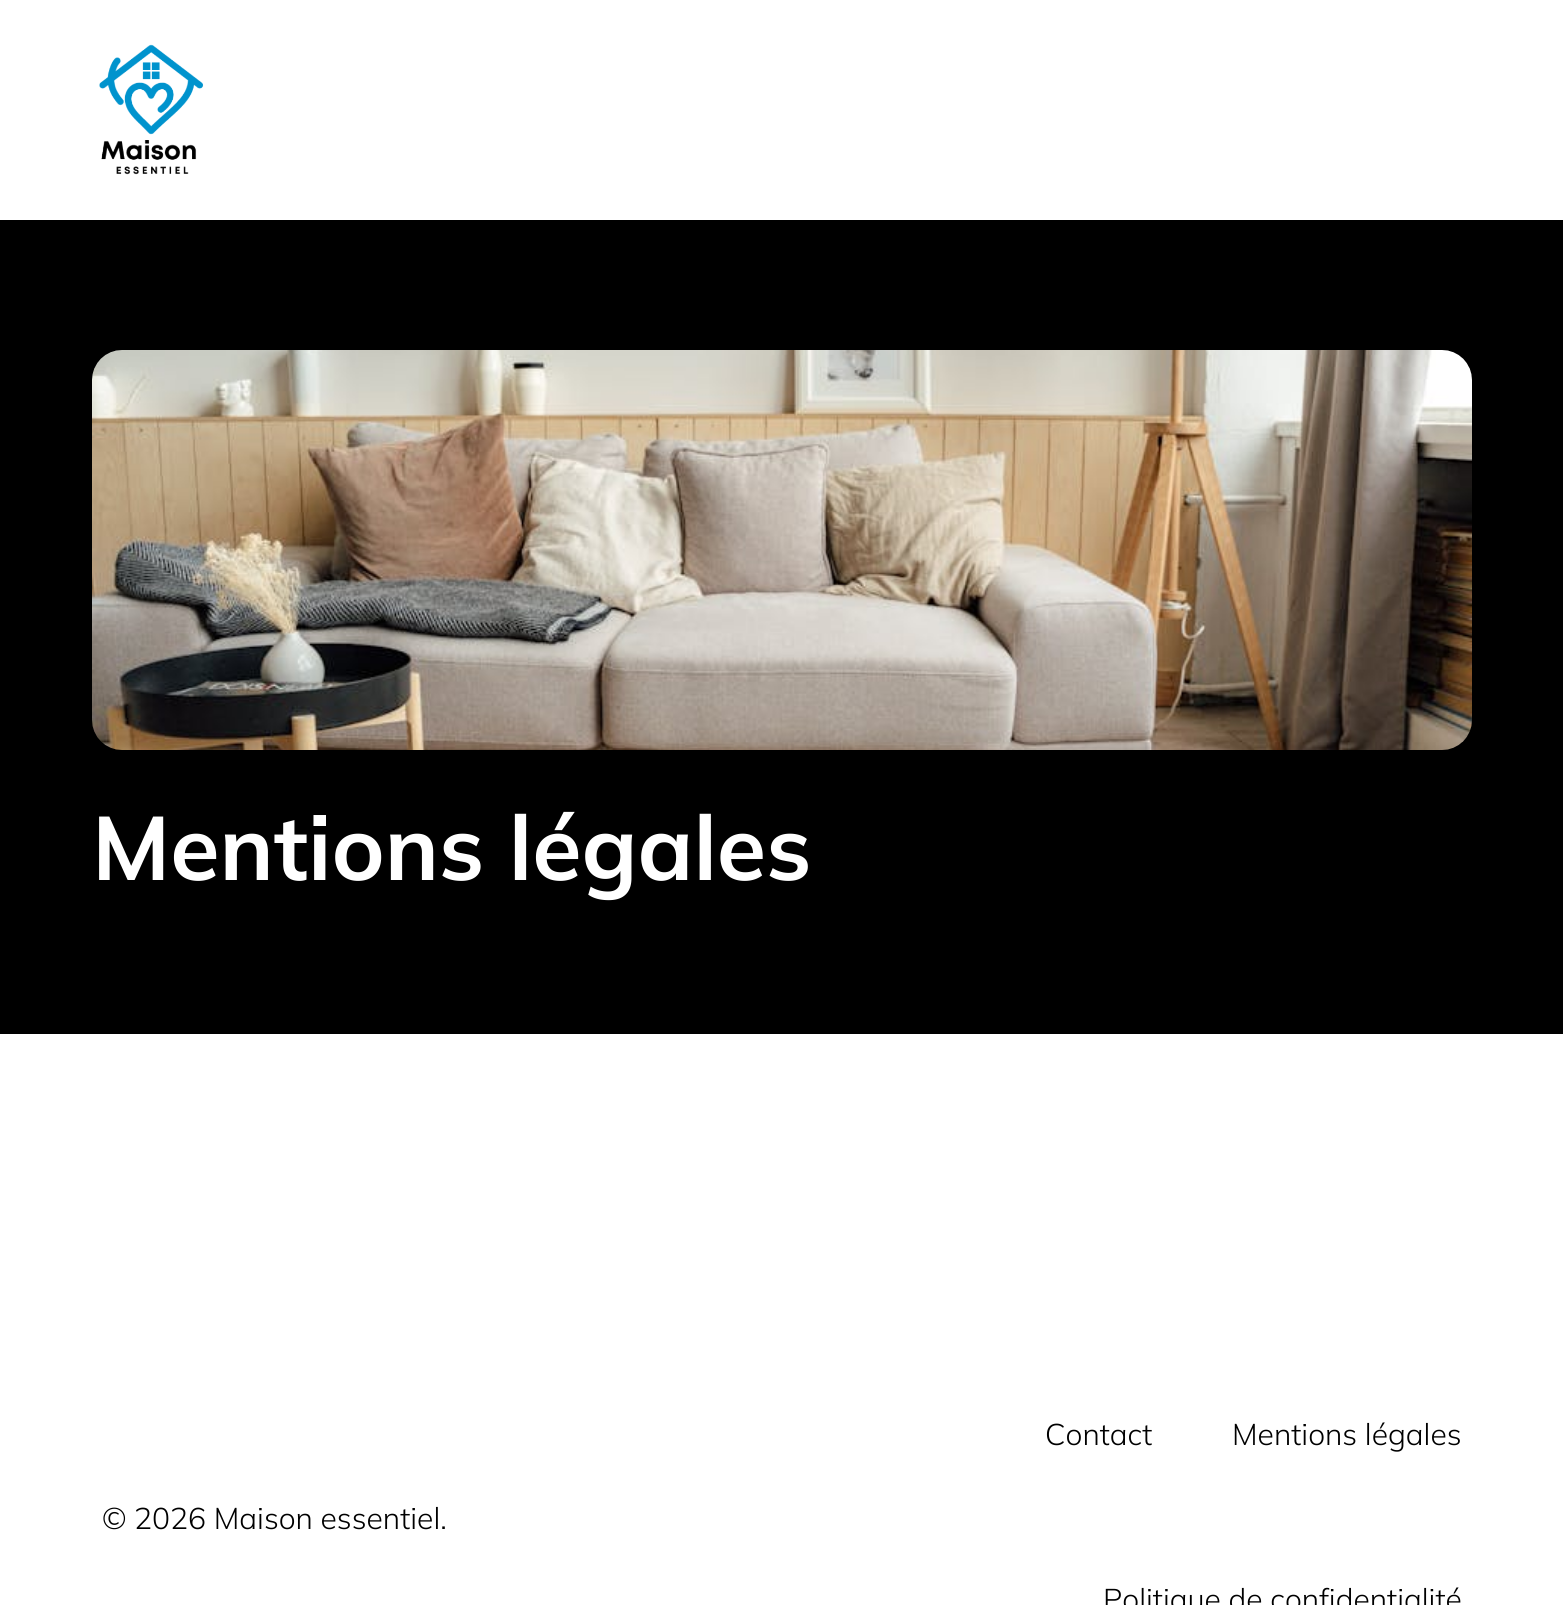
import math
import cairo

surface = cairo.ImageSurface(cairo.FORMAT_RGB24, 1563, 1605)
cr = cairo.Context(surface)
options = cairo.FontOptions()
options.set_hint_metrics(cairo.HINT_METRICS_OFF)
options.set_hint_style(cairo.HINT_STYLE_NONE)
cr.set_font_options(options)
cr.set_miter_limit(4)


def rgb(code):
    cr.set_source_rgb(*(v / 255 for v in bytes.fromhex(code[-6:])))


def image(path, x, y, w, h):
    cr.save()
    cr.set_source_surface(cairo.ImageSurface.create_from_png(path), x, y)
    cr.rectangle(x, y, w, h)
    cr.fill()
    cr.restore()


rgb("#ffffff")
cr.paint()
image("img/1.png", 99, 44, 105, 131)
rgb("#000000")
cr.rectangle(0, 220, 1563, 814)
cr.fill()
image("img/2.png", 92, 350, 1380, 400)
cr.select_font_face("Mulish", cairo.FONT_SLANT_NORMAL, cairo.FONT_WEIGHT_BOLD)
cr.set_font_size(90)
rgb("#ffffff")
cr.move_to(92, 880)
cr.show_text("Mentions légales")
cr.select_font_face("Mulish Light")
cr.set_font_size(30)
rgb("#000000")
for x, y, s in [
    (102, 1529, "© 2026 Maison essentiel."),
    (1045, 1445, "Contact"),
    (1232, 1445, "Mentions légales"),
    (1103, 1610, "Politique de confidentialité"),
]:
    cr.move_to(x, y)
    cr.show_text(s)
surface.write_to_png("page.png")
